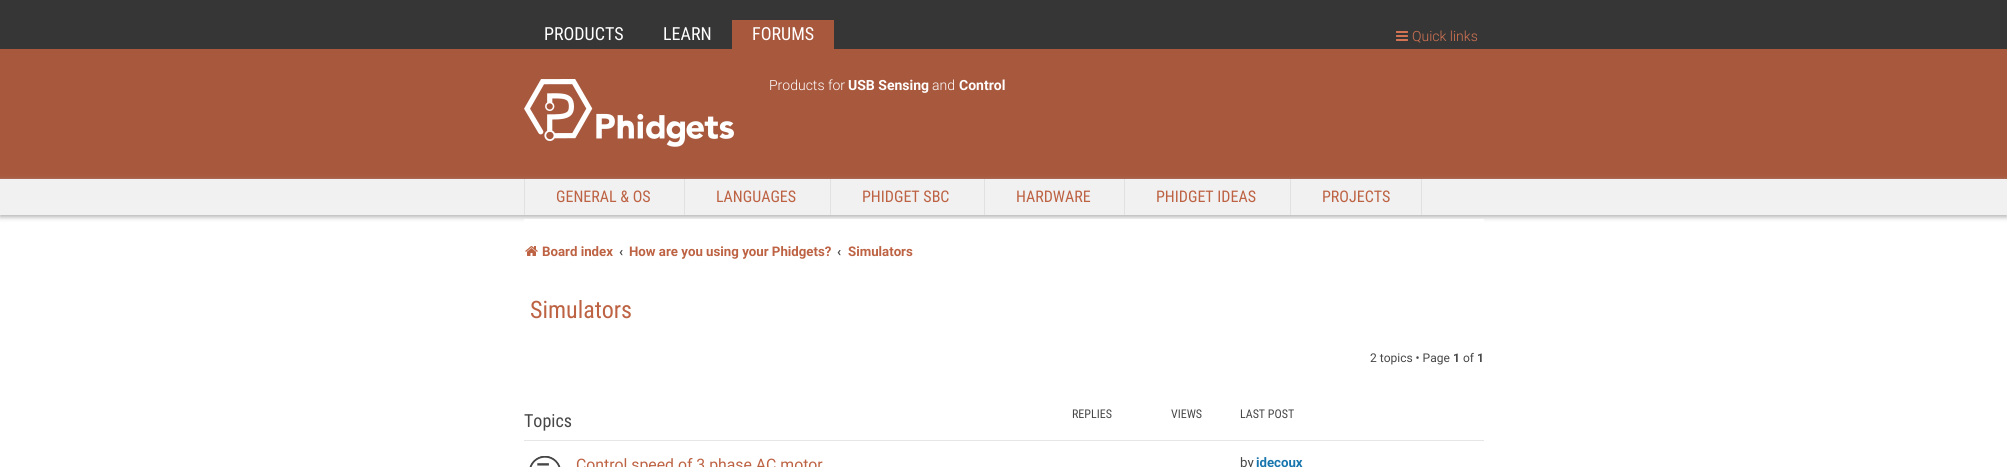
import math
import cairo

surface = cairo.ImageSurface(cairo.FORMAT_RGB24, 2007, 467)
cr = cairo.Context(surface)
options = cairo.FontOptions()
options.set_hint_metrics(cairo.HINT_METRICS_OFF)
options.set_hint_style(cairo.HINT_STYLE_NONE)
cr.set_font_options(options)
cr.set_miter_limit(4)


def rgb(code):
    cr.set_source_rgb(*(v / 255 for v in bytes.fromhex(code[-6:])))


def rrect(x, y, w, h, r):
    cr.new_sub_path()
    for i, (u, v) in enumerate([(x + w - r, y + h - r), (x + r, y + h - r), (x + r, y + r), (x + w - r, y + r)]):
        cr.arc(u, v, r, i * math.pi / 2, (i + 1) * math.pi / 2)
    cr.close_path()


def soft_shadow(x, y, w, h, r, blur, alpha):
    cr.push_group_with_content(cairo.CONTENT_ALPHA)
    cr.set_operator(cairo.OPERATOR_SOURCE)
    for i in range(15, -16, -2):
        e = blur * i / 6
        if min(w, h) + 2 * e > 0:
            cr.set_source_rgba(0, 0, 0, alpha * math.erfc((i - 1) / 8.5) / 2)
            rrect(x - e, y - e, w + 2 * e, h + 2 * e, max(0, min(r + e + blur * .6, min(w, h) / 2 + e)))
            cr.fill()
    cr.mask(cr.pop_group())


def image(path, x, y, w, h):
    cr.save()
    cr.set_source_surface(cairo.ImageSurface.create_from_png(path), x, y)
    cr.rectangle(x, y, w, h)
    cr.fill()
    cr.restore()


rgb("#ffffff")
cr.paint()
rgb("#363636")
cr.rectangle(0, 0, 2007, 49)
cr.fill()
rgb("#a8583d")
cr.rectangle(732, 20, 102, 29)
cr.fill()
image("img/1.png", 1396, 31, 12, 10)
cr.rectangle(0, 49, 2007, 130)
cr.fill()
rgb("#b0b0b0")
soft_shadow(0, 181, 2007, 36, 0, 2.5, 1)
rgb("#ffffff")
cr.rectangle(524, 219, 960, 3)
cr.fill()
image("img/2.png", 525, 246, 13, 10)
rgb("#e6e6e6")
cr.rectangle(524, 440, 960, 1)
cr.fill()
image("img/3.png", 529, 456, 32, 11)
image("img/4.png", 524, 79, 210, 68)
for x, y, w, h, color in [
    (0, 179, 2007, 36, "#f1f1f1"),
    (524, 179, 1, 36, "#e1e1e1"),
    (684, 179, 1, 36, "#e1e1e1"),
    (830, 179, 1, 36, "#e1e1e1"),
    (984, 179, 1, 36, "#e1e1e1"),
    (1124, 179, 1, 36, "#e1e1e1"),
    (1421, 179, 1, 36, "#e1e1e1"),
    (1290, 179, 1, 36, "#e1e1e1"),
]:
    rgb(color)
    cr.rectangle(x, y, w, h)
    cr.fill()
cr.select_font_face("Roboto Condensed")
cr.set_font_size(18)
rgb("#ffffff")
for x, y, s in [
    (544, 40, "PRODUCTS"),
    (663, 40, "LEARN"),
    (752, 40, "FORUMS"),
]:
    cr.move_to(x, y)
    cr.show_text(s)
cr.select_font_face("Roboto Light")
cr.set_font_size(14)
rgb("#d57453")
cr.move_to(1412, 41)
cr.show_text("Quick links")
cr.select_font_face("Roboto", cairo.FONT_SLANT_NORMAL, cairo.FONT_WEIGHT_BOLD)
cr.set_font_size(13.25)
rgb("#bd6243")
cr.move_to(542, 256)
cr.show_text("Board index")
rgb("#474747")
cr.move_to(619, 256)
cr.show_text("‹")
rgb("#bd6243")
cr.move_to(629, 256)
cr.show_text("How are you using your Phidgets?")
rgb("#474747")
cr.move_to(837, 256)
cr.show_text("‹")
rgb("#bd6243")
cr.move_to(848, 256)
cr.show_text("Simulators")
cr.select_font_face("Roboto Condensed")
cr.set_font_size(24)
cr.move_to(530, 318)
cr.show_text("Simulators")
cr.select_font_face("Roboto")
cr.set_font_size(12)
rgb("#474747")
cr.move_to(1370, 362)
cr.show_text("2 topics • Page")
cr.select_font_face("Roboto", cairo.FONT_SLANT_NORMAL, cairo.FONT_WEIGHT_BOLD)
cr.move_to(1453, 362)
cr.show_text("1")
cr.select_font_face("Roboto")
cr.move_to(1463, 362)
cr.show_text("of")
cr.select_font_face("Roboto", cairo.FONT_SLANT_NORMAL, cairo.FONT_WEIGHT_BOLD)
cr.move_to(1477, 362)
cr.show_text("1")
cr.select_font_face("Roboto Condensed")
cr.set_font_size(18)
cr.move_to(524, 427)
cr.show_text("Topics")
cr.set_font_size(12)
for x, y, s in [
    (1072, 418, "REPLIES"),
    (1171, 418, "VIEWS"),
    (1240, 418, "LAST POST"),
]:
    cr.move_to(x, y)
    cr.show_text(s)
cr.select_font_face("Roboto")
cr.set_font_size(15.8)
rgb("#bd6243")
cr.move_to(576, 470)
cr.show_text("Control speed of 3 phase AC motor")
cr.set_font_size(13.25)
rgb("#474747")
cr.move_to(1240, 467)
cr.show_text("by")
cr.select_font_face("Roboto", cairo.FONT_SLANT_NORMAL, cairo.FONT_WEIGHT_BOLD)
rgb("#1876ae")
cr.move_to(1256, 467)
cr.show_text("jdecoux")
cr.select_font_face("Roboto Light")
cr.set_font_size(14)
rgb("#ffffff")
cr.move_to(769, 90)
cr.show_text("Products for")
cr.select_font_face("Roboto", cairo.FONT_SLANT_NORMAL, cairo.FONT_WEIGHT_BOLD)
cr.move_to(848, 90)
cr.show_text("USB Sensing")
cr.select_font_face("Roboto Light")
cr.move_to(932, 90)
cr.show_text("and")
cr.select_font_face("Roboto", cairo.FONT_SLANT_NORMAL, cairo.FONT_WEIGHT_BOLD)
cr.move_to(959, 90)
cr.show_text("Control")
cr.select_font_face("Roboto Condensed")
cr.set_font_size(16)
rgb("#bd6243")
for x, y, s in [
    (556, 202, "GENERAL & OS"),
    (716, 202, "LANGUAGES"),
    (862, 202, "PHIDGET SBC"),
    (1016, 202, "HARDWARE"),
    (1156, 202, "PHIDGET IDEAS"),
    (1322, 202, "PROJECTS"),
]:
    cr.move_to(x, y)
    cr.show_text(s)
surface.write_to_png("page.png")
